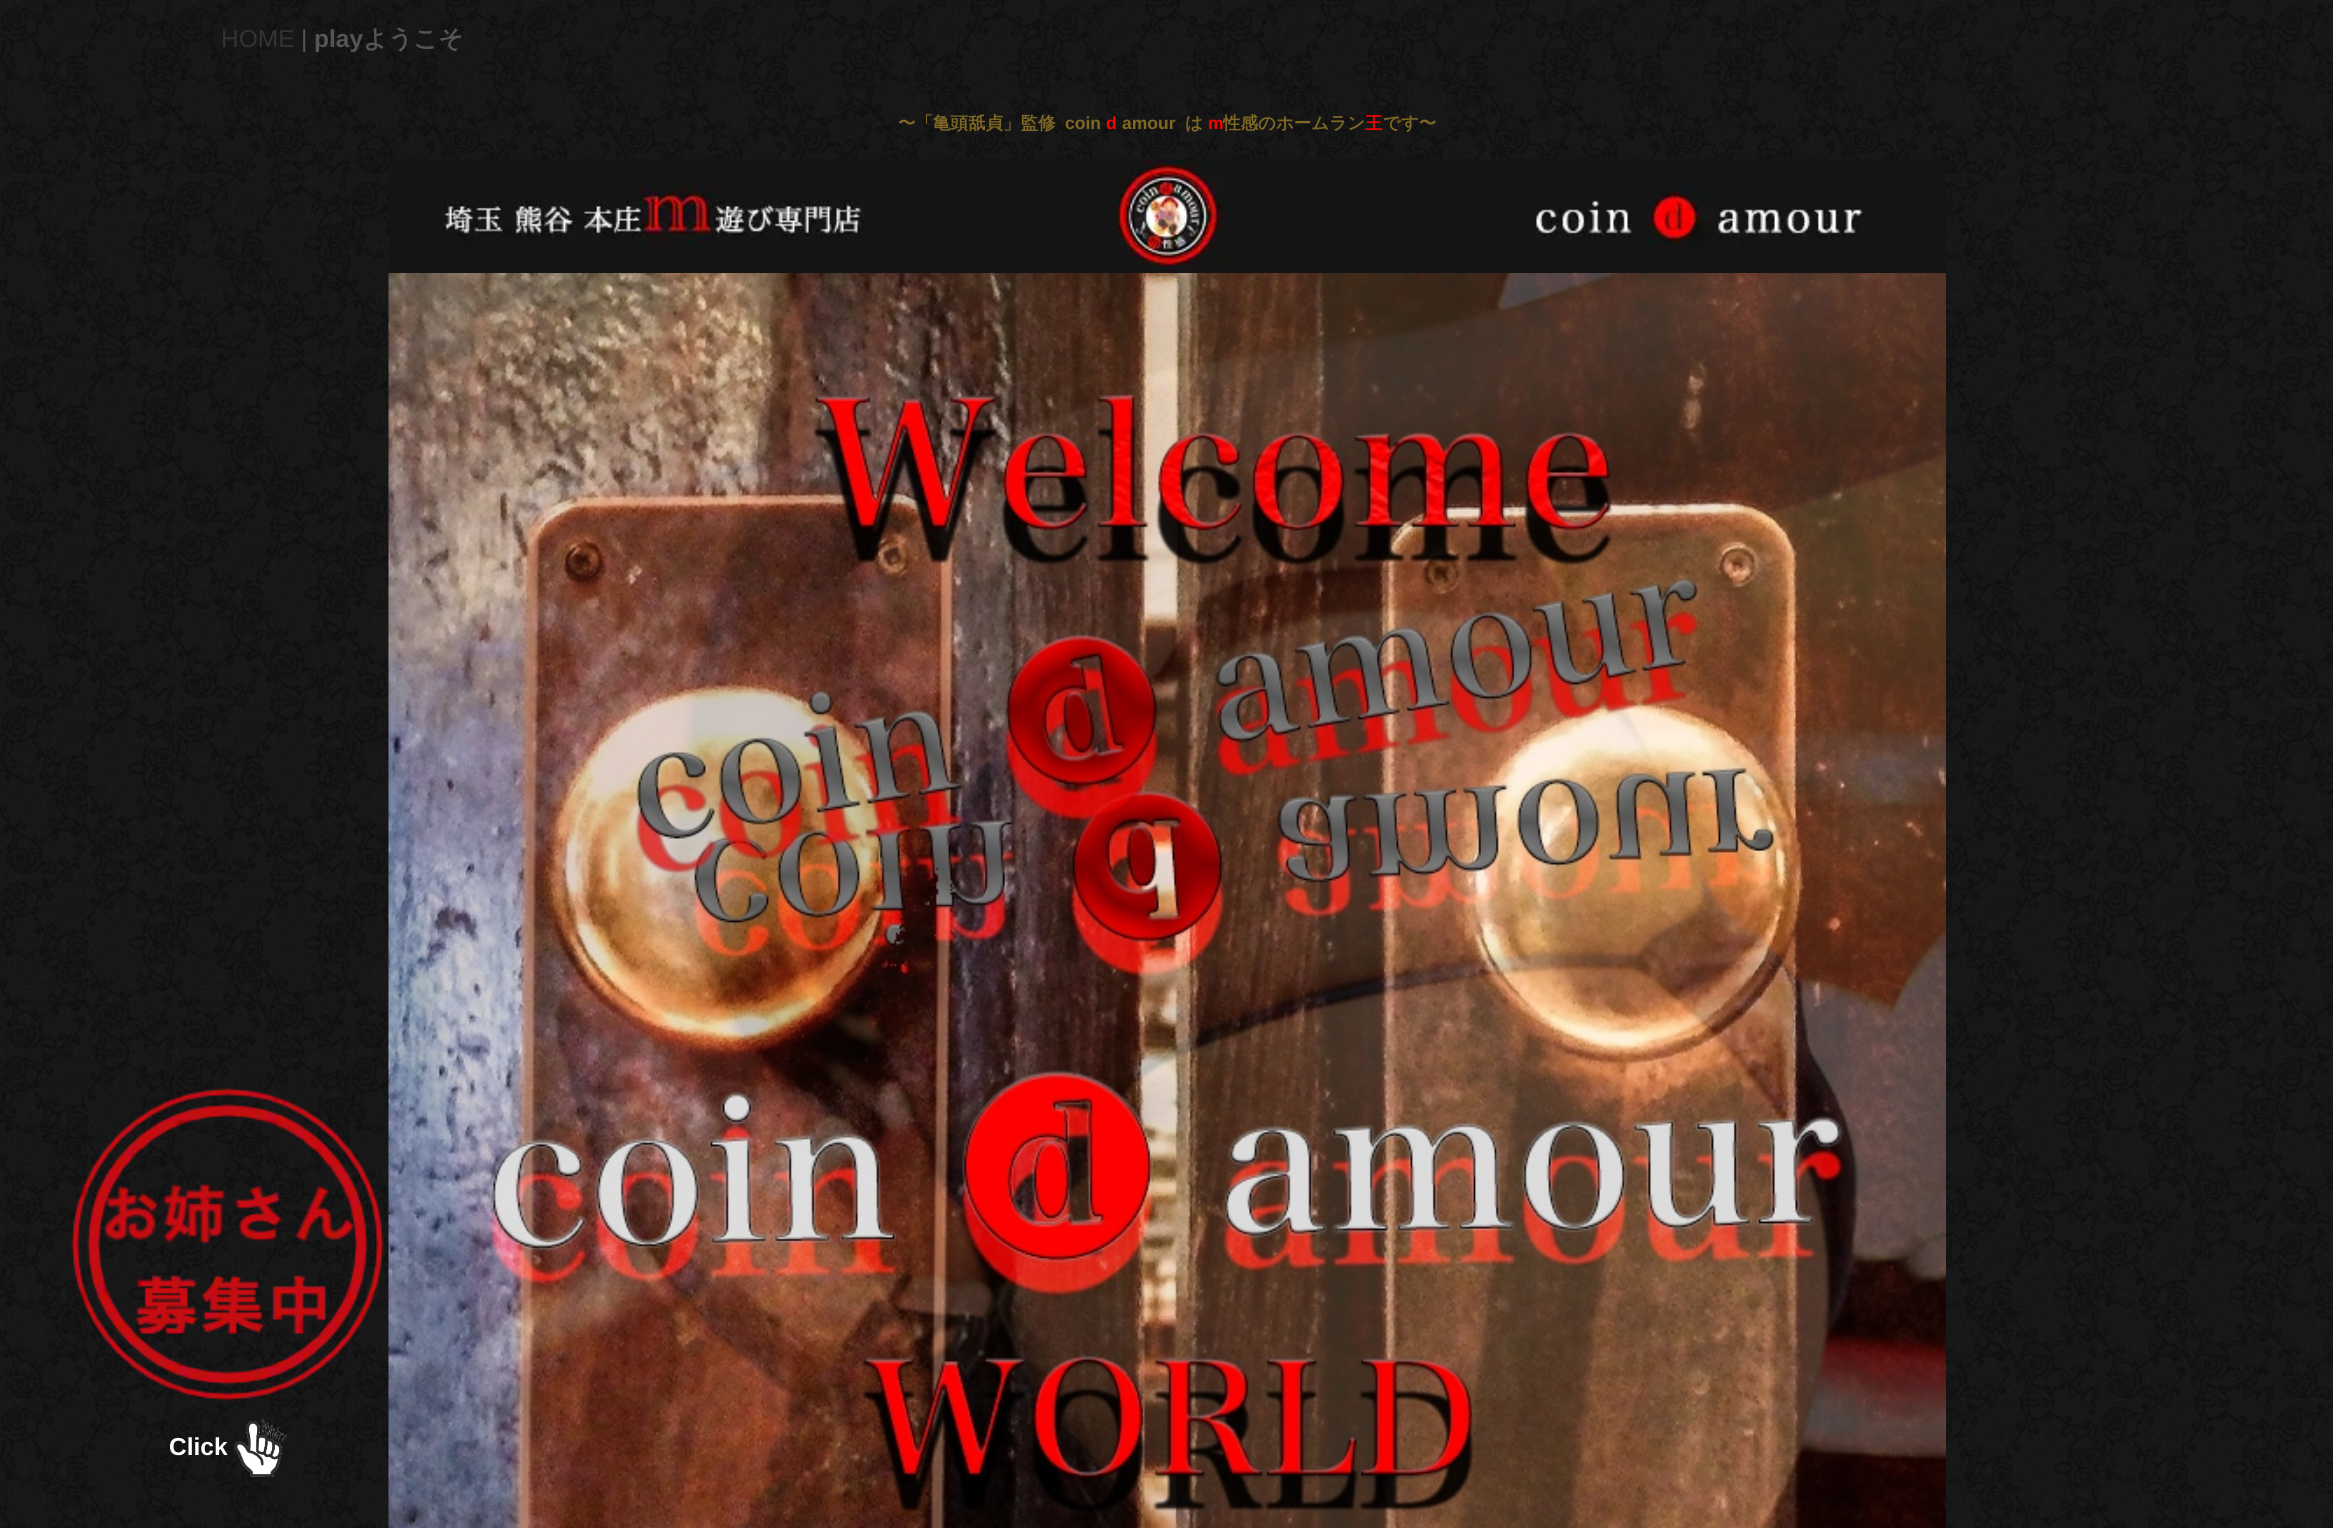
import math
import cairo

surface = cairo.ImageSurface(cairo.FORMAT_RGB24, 2333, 1528)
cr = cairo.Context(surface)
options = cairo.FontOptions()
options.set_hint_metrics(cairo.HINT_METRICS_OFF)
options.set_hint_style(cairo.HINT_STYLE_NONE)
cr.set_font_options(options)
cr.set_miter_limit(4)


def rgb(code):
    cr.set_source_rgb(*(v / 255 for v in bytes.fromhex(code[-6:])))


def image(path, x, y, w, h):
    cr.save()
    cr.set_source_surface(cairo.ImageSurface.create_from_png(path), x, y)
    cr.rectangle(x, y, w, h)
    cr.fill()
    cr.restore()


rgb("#ffffff")
cr.paint()
image("img/1.png", 0, 0, 2333, 1528)
image("img/2.png", 389, 159, 1557, 114)
image("img/3.png", 71, 1088, 313, 313)
image("img/4.png", 234, 1419, 53, 58)
image("img/5.png", 388, 273, 1558, 1255)
cr.select_font_face("Liberation Sans")
cr.set_font_size(24.5)
rgb("#333333")
cr.move_to(221, 47)
cr.show_text("HOME")
rgb("#555555")
cr.move_to(301, 47)
cr.show_text("|")
cr.select_font_face("Liberation Sans", cairo.FONT_SLANT_NORMAL, cairo.FONT_WEIGHT_BOLD)
cr.move_to(314, 47)
cr.show_text("play")
cr.select_font_face("WenQuanYi Zen Hei", cairo.FONT_SLANT_NORMAL, cairo.FONT_WEIGHT_BOLD)
cr.move_to(363, 47)
cr.show_text("ようこそ")
cr.set_font_size(17.5)
rgb("#7f6823")
cr.move_to(898, 129)
cr.show_text("〜「亀頭舐貞」監修")
cr.select_font_face("Liberation Sans", cairo.FONT_SLANT_NORMAL, cairo.FONT_WEIGHT_BOLD)
cr.move_to(1065, 129)
cr.show_text("coin")
rgb("#ff0000")
cr.move_to(1106, 129)
cr.show_text("d")
rgb("#7f6823")
cr.move_to(1122, 129)
cr.show_text("amour")
cr.select_font_face("WenQuanYi Zen Hei", cairo.FONT_SLANT_NORMAL, cairo.FONT_WEIGHT_BOLD)
cr.move_to(1185, 129)
cr.show_text("は")
cr.select_font_face("Liberation Sans", cairo.FONT_SLANT_NORMAL, cairo.FONT_WEIGHT_BOLD)
rgb("#ff0000")
cr.move_to(1208, 129)
cr.show_text("m")
cr.select_font_face("WenQuanYi Zen Hei", cairo.FONT_SLANT_NORMAL, cairo.FONT_WEIGHT_BOLD)
rgb("#7f6823")
cr.move_to(1223, 129)
cr.show_text("性感のホームラン")
rgb("#ff0000")
cr.move_to(1365, 129)
cr.show_text("王")
rgb("#7f6823")
cr.move_to(1383, 129)
cr.show_text("です〜")
cr.select_font_face("Liberation Sans", cairo.FONT_SLANT_NORMAL, cairo.FONT_WEIGHT_BOLD)
cr.set_font_size(24.5)
rgb("#ffffff")
cr.move_to(169, 1455)
cr.show_text("Click")
surface.write_to_png("page.png")
